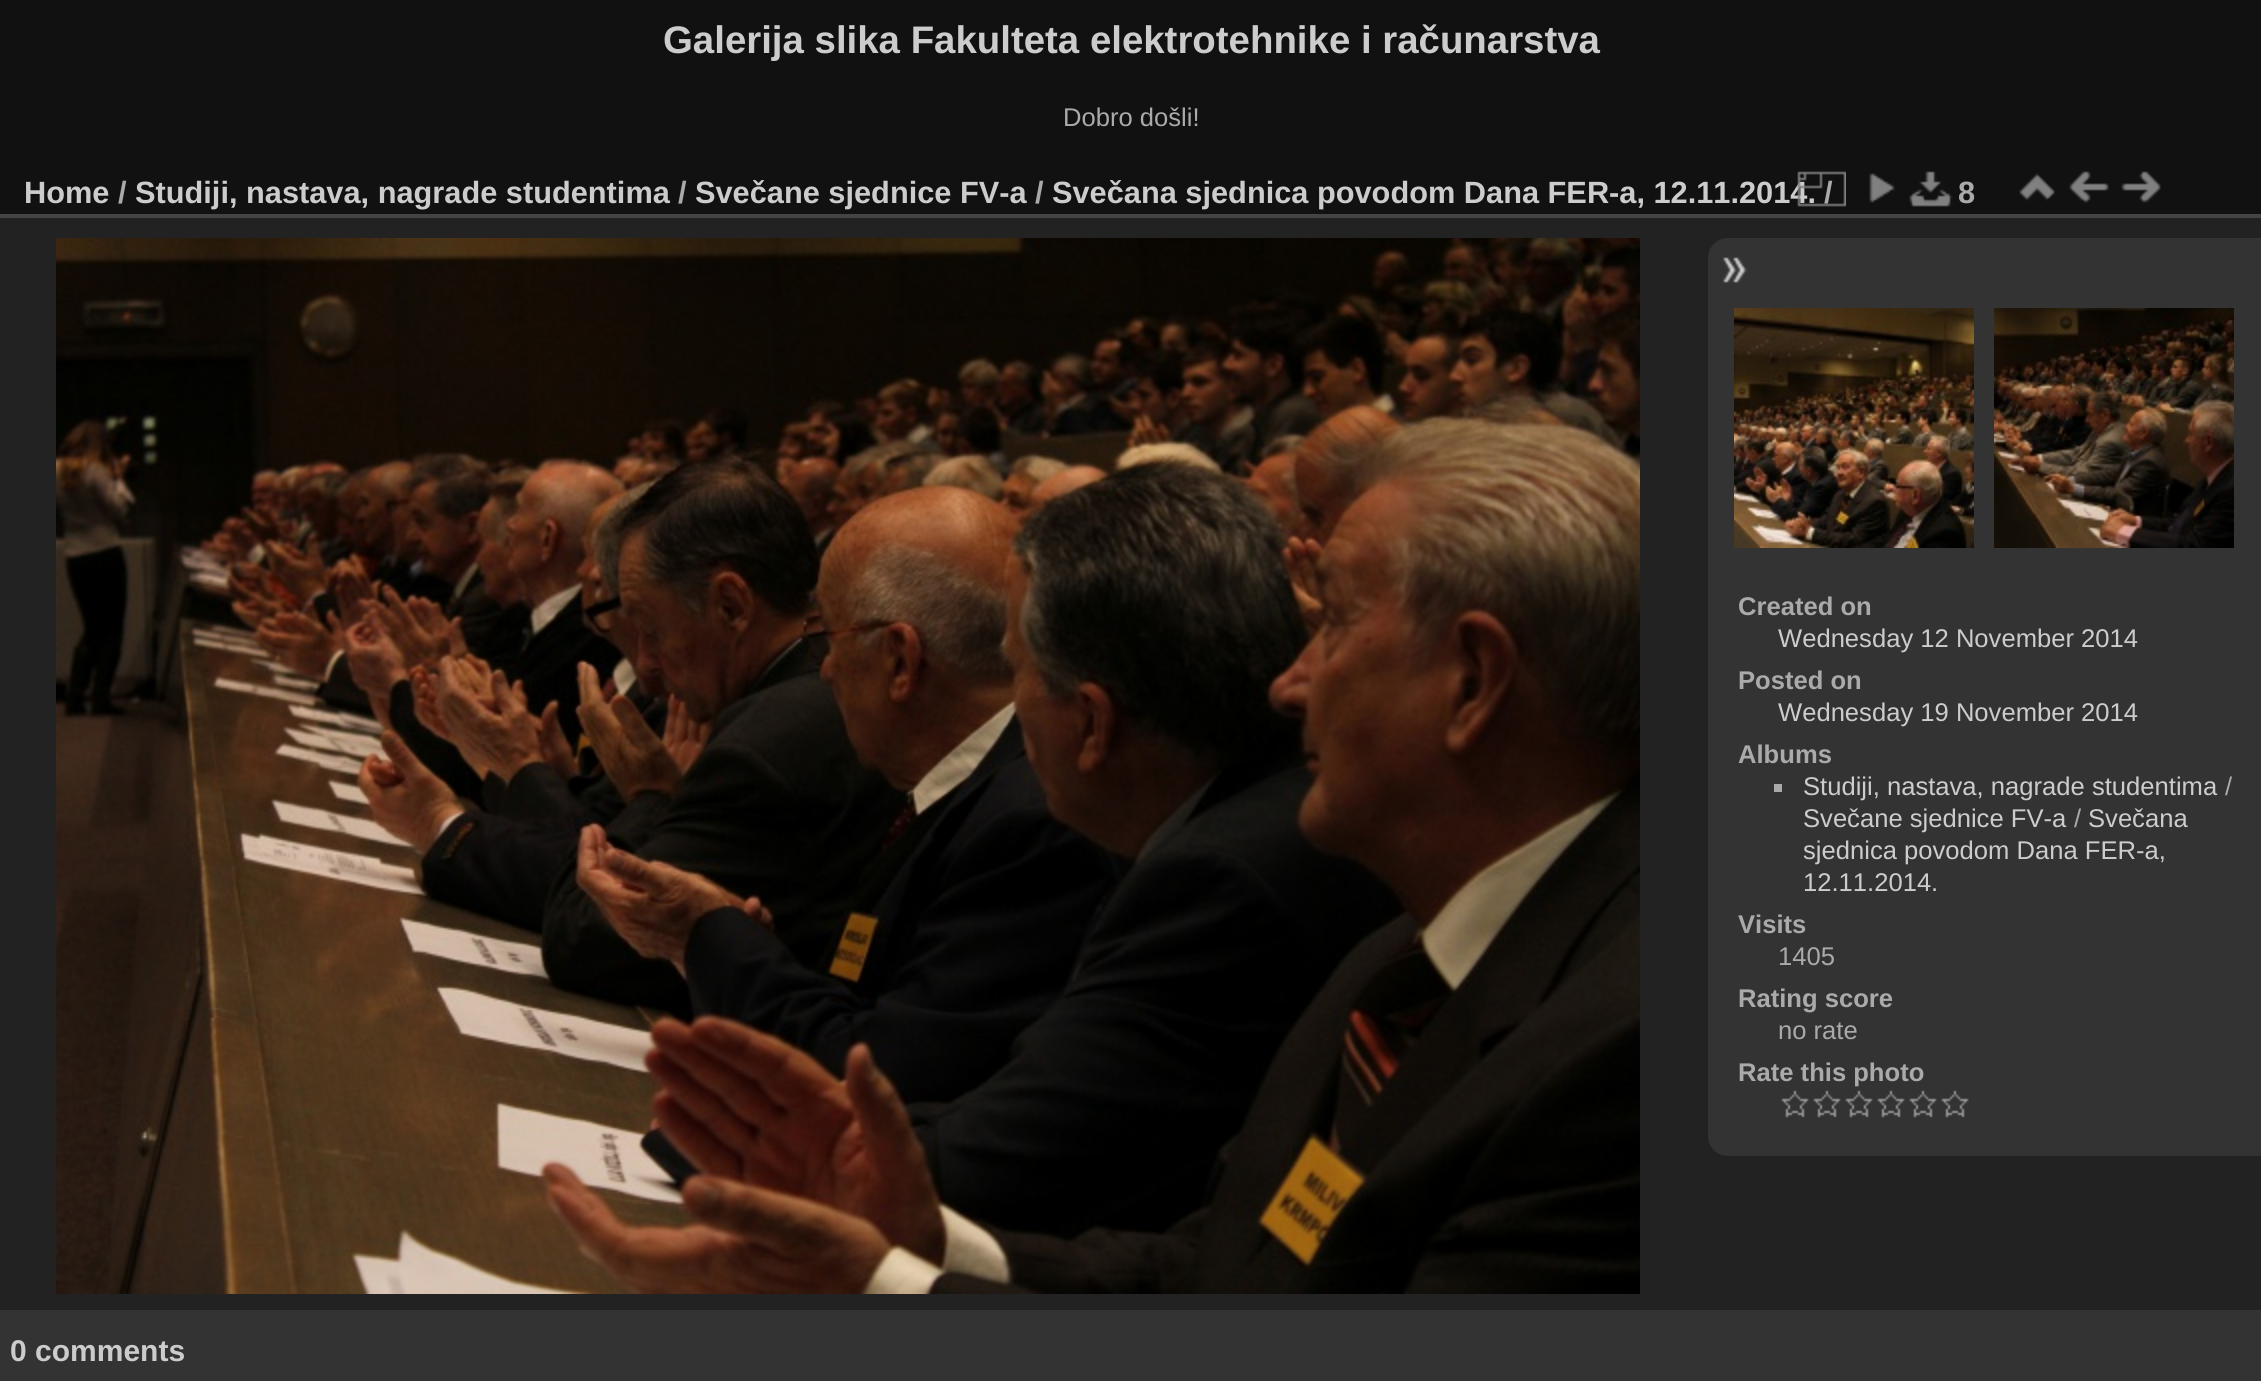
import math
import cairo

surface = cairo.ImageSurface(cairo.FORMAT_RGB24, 2261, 1381)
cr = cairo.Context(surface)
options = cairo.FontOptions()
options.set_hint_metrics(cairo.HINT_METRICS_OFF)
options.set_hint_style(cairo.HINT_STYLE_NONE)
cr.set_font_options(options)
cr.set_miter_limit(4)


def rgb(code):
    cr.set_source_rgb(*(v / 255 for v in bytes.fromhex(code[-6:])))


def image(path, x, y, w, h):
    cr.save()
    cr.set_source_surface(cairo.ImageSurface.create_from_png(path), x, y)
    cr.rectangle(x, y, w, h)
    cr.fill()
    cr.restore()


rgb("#111111")
cr.paint()
rgb("#222222")
cr.rectangle(0, 218, 2261, 1092)
cr.fill()
rgb("#444444")
cr.rectangle(0, 214, 2261, 4)
cr.fill()
image("img/2.png", 1869, 173, 26, 30)
image("img/3.png", 1909, 171, 44, 36)
image("img/4.png", 2019, 173, 36, 28)
image("img/5.png", 2069, 171, 40, 32)
image("img/6.png", 2121, 171, 40, 32)
image("img/7.png", 56, 238, 1584, 1056)
rgb("#333333")
cr.new_path()
cr.move_to(1728, 238)
cr.line_to(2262, 238)
cr.line_to(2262, 1156)
cr.line_to(1728, 1156)
cr.curve_to(1717, 1156, 1708, 1147, 1708, 1136)
cr.line_to(1708, 258)
cr.curve_to(1708, 247, 1717, 238, 1728, 238)
cr.close_path()
cr.fill()
image("img/8.png", 1723, 257, 24, 26)
image("img/9.png", 1734, 308, 240, 240)
image("img/10.png", 1994, 308, 240, 240)
rgb("#aaaaaa")
cr.rectangle(1774, 784, 8, 8)
cr.fill()
image("img/11.png", 1781, 1090, 28, 28)
image("img/11.png", 1813, 1090, 28, 28)
image("img/11.png", 1845, 1090, 28, 28)
image("img/11.png", 1877, 1090, 28, 28)
image("img/11.png", 1909, 1090, 28, 28)
image("img/11.png", 1941, 1090, 28, 28)
rgb("#333333")
cr.rectangle(0, 1310, 2261, 71)
cr.fill()
cr.select_font_face("Liberation Sans", cairo.FONT_SLANT_NORMAL, cairo.FONT_WEIGHT_BOLD)
cr.set_font_size(38.4)
rgb("#cccccc")
cr.move_to(663, 53)
cr.show_text("Galerija slika Fakulteta elektrotehnike i računarstva")
cr.select_font_face("Liberation Sans")
cr.set_font_size(25.6)
rgb("#aaaaaa")
cr.move_to(1063, 126)
cr.show_text("Dobro došli!")
cr.select_font_face("Liberation Sans", cairo.FONT_SLANT_NORMAL, cairo.FONT_WEIGHT_BOLD)
cr.set_font_size(30.75)
rgb("#cccccc")
cr.move_to(24, 203)
cr.show_text("Home")
rgb("#aaaaaa")
cr.move_to(118, 203)
cr.show_text("/")
rgb("#cccccc")
cr.move_to(135, 203)
cr.show_text("Studiji, nastava, nagrade studentima")
rgb("#aaaaaa")
cr.move_to(678, 203)
cr.show_text("/")
rgb("#cccccc")
cr.move_to(695, 203)
cr.show_text("Svečane sjednice FV-a")
rgb("#aaaaaa")
cr.move_to(1035, 203)
cr.show_text("/")
rgb("#cccccc")
cr.move_to(1052, 203)
cr.show_text("Svečana sjednica povodom Dana FER-a, 12.11.2014.")
rgb("#aaaaaa")
cr.move_to(1824, 203)
cr.show_text("/")
cr.move_to(1958, 203)
cr.show_text("8")
image("img/1.png", 1797, 171, 49, 36)
cr.set_font_size(25.6)
cr.move_to(1738, 615)
cr.show_text("Created on")
cr.select_font_face("Liberation Sans")
rgb("#cccccc")
cr.move_to(1778, 647)
cr.show_text("Wednesday 12 November 2014")
cr.select_font_face("Liberation Sans", cairo.FONT_SLANT_NORMAL, cairo.FONT_WEIGHT_BOLD)
rgb("#aaaaaa")
cr.move_to(1738, 689)
cr.show_text("Posted on")
cr.select_font_face("Liberation Sans")
rgb("#cccccc")
cr.move_to(1778, 721)
cr.show_text("Wednesday 19 November 2014")
cr.select_font_face("Liberation Sans", cairo.FONT_SLANT_NORMAL, cairo.FONT_WEIGHT_BOLD)
rgb("#aaaaaa")
cr.move_to(1738, 763)
cr.show_text("Albums")
cr.select_font_face("Liberation Sans")
rgb("#cccccc")
cr.move_to(1803, 795)
cr.show_text("Studiji, nastava, nagrade studentima")
rgb("#aaaaaa")
cr.move_to(2225, 795)
cr.show_text("/")
rgb("#cccccc")
cr.move_to(1803, 827)
cr.show_text("Svečane sjednice FV-a")
rgb("#aaaaaa")
cr.move_to(2074, 827)
cr.show_text("/")
rgb("#cccccc")
for x, y, s in [
    (2088, 827, "Svečana"),
    (1803, 859, "sjednica povodom Dana FER-a,"),
    (1803, 891, "12.11.2014."),
]:
    cr.move_to(x, y)
    cr.show_text(s)
cr.select_font_face("Liberation Sans", cairo.FONT_SLANT_NORMAL, cairo.FONT_WEIGHT_BOLD)
rgb("#aaaaaa")
cr.move_to(1738, 933)
cr.show_text("Visits")
cr.select_font_face("Liberation Sans")
cr.move_to(1778, 965)
cr.show_text("1405")
cr.select_font_face("Liberation Sans", cairo.FONT_SLANT_NORMAL, cairo.FONT_WEIGHT_BOLD)
cr.move_to(1738, 1007)
cr.show_text("Rating score")
cr.select_font_face("Liberation Sans")
cr.move_to(1778, 1039)
cr.show_text("no rate")
cr.select_font_face("Liberation Sans", cairo.FONT_SLANT_NORMAL, cairo.FONT_WEIGHT_BOLD)
cr.move_to(1738, 1081)
cr.show_text("Rate this photo")
cr.set_font_size(30)
rgb("#cccccc")
cr.move_to(10, 1361)
cr.show_text("0 comments")
surface.write_to_png("page.png")
